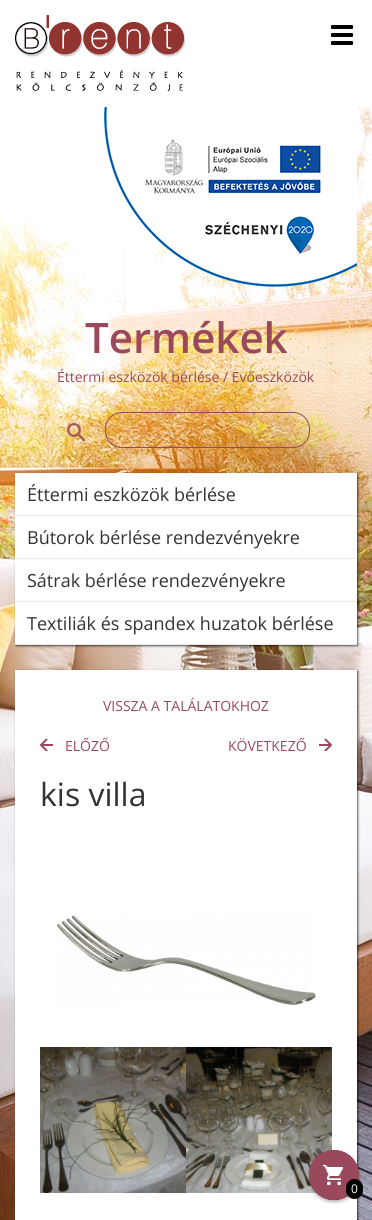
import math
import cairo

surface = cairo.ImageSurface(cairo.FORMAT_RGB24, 372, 1220)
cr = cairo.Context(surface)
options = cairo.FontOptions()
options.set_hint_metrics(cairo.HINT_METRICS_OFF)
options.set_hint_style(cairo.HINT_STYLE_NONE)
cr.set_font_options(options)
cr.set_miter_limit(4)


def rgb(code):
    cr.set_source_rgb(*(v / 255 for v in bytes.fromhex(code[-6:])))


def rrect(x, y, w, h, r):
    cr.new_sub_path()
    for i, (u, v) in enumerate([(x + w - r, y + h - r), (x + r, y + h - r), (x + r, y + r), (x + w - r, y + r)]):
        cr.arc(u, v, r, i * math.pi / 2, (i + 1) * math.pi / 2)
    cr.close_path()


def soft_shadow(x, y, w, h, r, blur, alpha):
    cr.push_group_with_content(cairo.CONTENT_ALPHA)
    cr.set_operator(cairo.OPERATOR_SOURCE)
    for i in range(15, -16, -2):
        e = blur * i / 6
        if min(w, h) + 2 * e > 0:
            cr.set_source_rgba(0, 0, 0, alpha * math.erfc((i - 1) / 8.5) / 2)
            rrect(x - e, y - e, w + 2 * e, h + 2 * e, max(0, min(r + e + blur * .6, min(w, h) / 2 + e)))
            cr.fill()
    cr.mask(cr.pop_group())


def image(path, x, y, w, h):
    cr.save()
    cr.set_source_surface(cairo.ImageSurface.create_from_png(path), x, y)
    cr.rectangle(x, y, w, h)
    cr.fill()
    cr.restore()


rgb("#ffffff")
cr.paint()
image("img/1.png", 0, 107, 372, 1113)
image("img/2.png", 15, 15, 170, 76)
rgb("#000000")
rrect(331, 25, 22, 4, 1)
cr.fill()
rrect(331, 33, 22, 4, 1)
cr.fill()
rrect(331, 41, 22, 4, 1)
cr.fill()
image("img/3.png", 104, 107, 253, 180)
image("img/4.png", 67, 423, 19, 19)
rrect(105.5, 412.5, 204, 35, 16.5)
rgb("#9a495c")
cr.set_line_width(1)
cr.stroke()
rgb("#000000")
soft_shadow(16, 671, 342, 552, 0, 1, 0.65)
rgb("#ffffff")
cr.rectangle(15, 670, 342, 550)
cr.fill()
image("img/10.png", 186, 1047, 146, 146)
image("img/5.png", 307, 1150, 54, 54)
rgb("#000000")
rrect(346, 1179, 17, 20, 8.5)
cr.fill()
rgb("#000000")
soft_shadow(16, 474, 342, 172, 0, 1, 0.65)
for x, y, w, h, color in [
    (15, 473, 342, 171, "#ffffff"),
    (15, 515, 342, 1, "#e8e8e8"),
    (15, 558, 342, 1, "#e8e8e8"),
    (15, 601, 342, 1, "#e8e8e8"),
    (15, 644, 342, 1, "#e8e8e8"),
]:
    rgb(color)
    cr.rectangle(x, y, w, h)
    cr.fill()
image("img/6.png", 40, 739, 13, 12)
image("img/7.png", 319, 739, 13, 12)
image("img/8.png", 56, 915, 260, 90)
image("img/9.png", 40, 1047, 146, 146)
cr.select_font_face("Open Sans SemiBold")
cr.set_font_size(42)
rgb("#9a495c")
cr.move_to(85, 353)
cr.show_text("Termékek")
cr.select_font_face("Open Sans")
cr.set_font_size(14)
cr.move_to(57, 382)
cr.show_text("Éttermi eszközök bérlése / Evőeszközök")
cr.set_font_size(12)
rgb("#ffffff")
cr.move_to(351, 1193)
cr.show_text("0")
cr.set_font_size(18)
rgb("#333333")
for x, y, s in [
    (27, 501, "Éttermi eszközök bérlése"),
    (27, 544, "Bútorok bérlése rendezvényekre"),
    (27, 587, "Sátrak bérlése rendezvényekre"),
    (27, 630, "Textiliák és spandex huzatok bérlése"),
]:
    cr.move_to(x, y)
    cr.show_text(s)
cr.set_font_size(14)
rgb("#9a495c")
for x, y, s in [
    (103, 711, "VISSZA A TALÁLATOKHOZ"),
    (65, 751, "ELŐZŐ"),
    (228, 751, "KÖVETKEZŐ"),
]:
    cr.move_to(x, y)
    cr.show_text(s)
cr.set_font_size(32)
rgb("#333333")
cr.move_to(40, 806)
cr.show_text("kis villa")
surface.write_to_png("page.png")
